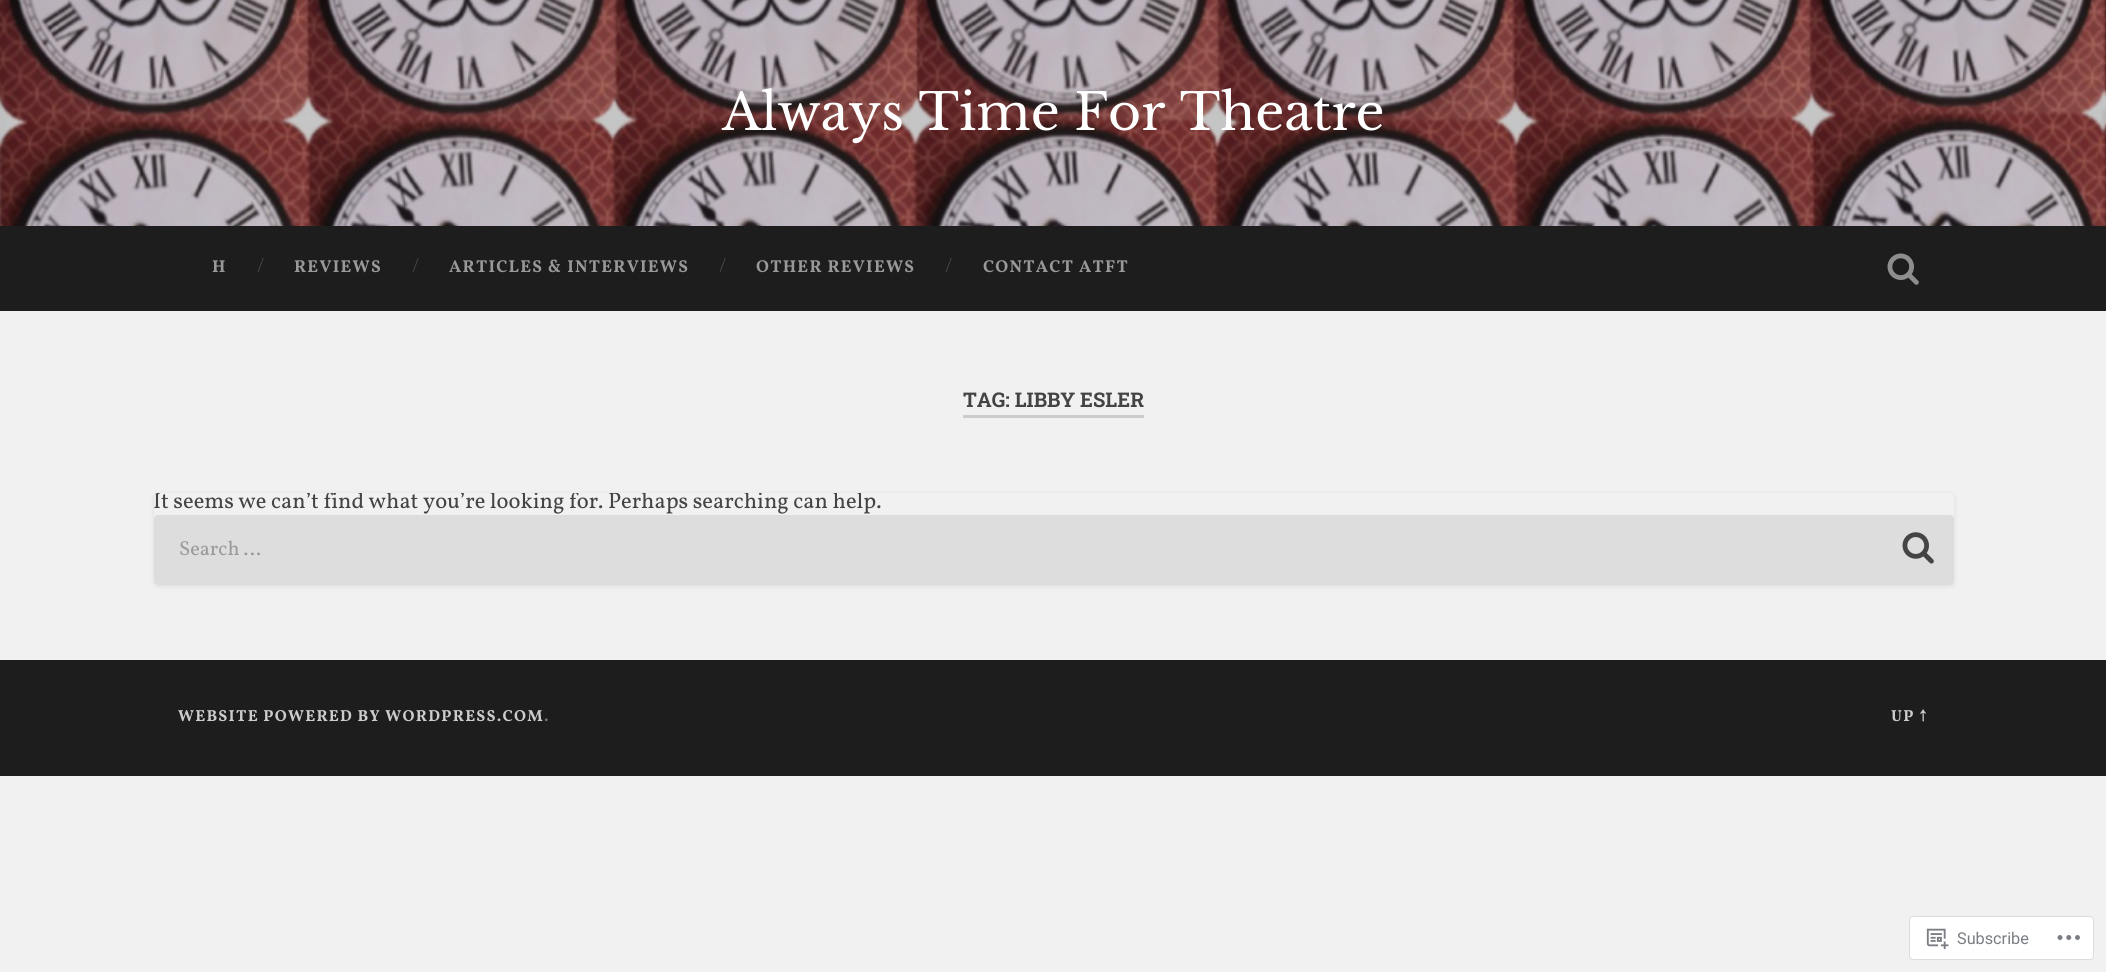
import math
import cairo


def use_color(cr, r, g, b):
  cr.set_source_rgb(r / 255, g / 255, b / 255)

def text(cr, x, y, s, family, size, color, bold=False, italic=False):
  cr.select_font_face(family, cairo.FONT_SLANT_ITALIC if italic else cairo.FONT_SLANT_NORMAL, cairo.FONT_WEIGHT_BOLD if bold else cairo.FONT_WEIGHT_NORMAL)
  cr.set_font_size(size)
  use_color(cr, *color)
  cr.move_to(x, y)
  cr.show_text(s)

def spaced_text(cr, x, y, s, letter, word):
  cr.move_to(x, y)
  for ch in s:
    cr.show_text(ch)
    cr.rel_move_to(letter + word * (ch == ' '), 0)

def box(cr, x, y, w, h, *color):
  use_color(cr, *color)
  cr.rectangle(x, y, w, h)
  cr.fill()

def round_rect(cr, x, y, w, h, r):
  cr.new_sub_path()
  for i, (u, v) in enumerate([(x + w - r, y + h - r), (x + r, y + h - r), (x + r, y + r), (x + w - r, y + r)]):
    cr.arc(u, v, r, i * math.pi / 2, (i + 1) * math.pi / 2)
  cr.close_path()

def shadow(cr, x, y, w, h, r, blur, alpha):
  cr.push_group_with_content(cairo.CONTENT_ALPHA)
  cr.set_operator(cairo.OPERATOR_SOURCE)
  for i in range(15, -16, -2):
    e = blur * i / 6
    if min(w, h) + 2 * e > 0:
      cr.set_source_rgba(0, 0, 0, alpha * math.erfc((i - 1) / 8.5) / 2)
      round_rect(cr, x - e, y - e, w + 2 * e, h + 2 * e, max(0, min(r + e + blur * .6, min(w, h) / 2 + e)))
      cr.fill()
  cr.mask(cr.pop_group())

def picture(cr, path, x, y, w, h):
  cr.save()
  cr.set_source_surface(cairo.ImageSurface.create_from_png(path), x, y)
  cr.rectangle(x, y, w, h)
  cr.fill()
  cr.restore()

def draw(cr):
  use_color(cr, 241, 241, 241)
  cr.paint()
  picture(cr, "img_01.png", 0, 0, 2106, 226)
  box(cr, 0, 226, 2106, 85, 29, 29, 29)
  picture(cr, "img_02.png", 1887, 253, 32, 32)
  box(cr, 963, 415, 181, 3, 204, 204, 204)
  cr.save()
  cr.set_fill_rule(cairo.FILL_RULE_EVEN_ODD)
  cr.new_path()
  cr.move_to(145, 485)
  cr.line_to(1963, 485)
  cr.line_to(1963, 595)
  cr.line_to(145, 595)
  cr.close_path()
  cr.move_to(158, 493)
  cr.line_to(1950, 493)
  cr.curve_to(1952, 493, 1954, 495, 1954, 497)
  cr.line_to(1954, 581)
  cr.curve_to(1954, 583, 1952, 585, 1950, 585)
  cr.line_to(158, 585)
  cr.curve_to(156, 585, 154, 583, 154, 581)
  cr.line_to(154, 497)
  cr.curve_to(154, 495, 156, 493, 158, 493)
  cr.close_path()
  cr.clip()
  use_color(cr, 0, 0, 0)
  shadow(cr, 154, 494, 1800, 92, 4, 2.5, 0.1)
  cr.restore()
  use_color(cr, 221, 221, 221)
  round_rect(cr, 154, 515, 1800, 70, 4)
  cr.fill()
  picture(cr, "img_03.png", 1902, 532, 32, 32)
  box(cr, 0, 660, 2106, 116, 29, 29, 29)
  use_color(cr, 255, 255, 255)
  round_rect(cr, 1909.5, 916.5, 184, 43, 3.5)
  cr.fill_preserve()
  use_color(cr, 220, 220, 222)
  cr.set_line_width(1)
  cr.stroke()
  picture(cr, "img_04.png", 1926, 928, 23, 22)
  picture(cr, "img_05.png", 2057, 935, 23, 5)
  text(cr, 722, 130, "Always Time For Theatre", "Libre Baskerville", 50.6, (255, 255, 255))
  cr.select_font_face("Vollkorn", cairo.FONT_SLANT_NORMAL, cairo.FONT_WEIGHT_BOLD)
  cr.set_font_size(17.25)
  use_color(cr, 153, 153, 153)
  spaced_text(cr, 212, 272, "H", 1.25, 0)
  text(cr, 257, 272, "/", "Vollkorn", 20, (68, 68, 68))
  cr.select_font_face("Vollkorn", cairo.FONT_SLANT_NORMAL, cairo.FONT_WEIGHT_BOLD)
  cr.set_font_size(17.25)
  use_color(cr, 153, 153, 153)
  spaced_text(cr, 294, 272, "REVIEWS", 1.25, 0)
  text(cr, 412, 272, "/", "Vollkorn", 20, (68, 68, 68))
  cr.select_font_face("Vollkorn", cairo.FONT_SLANT_NORMAL, cairo.FONT_WEIGHT_BOLD)
  cr.set_font_size(17.25)
  use_color(cr, 153, 153, 153)
  spaced_text(cr, 449, 272, "ARTICLES & INTERVIEWS", 1.25, 0)
  text(cr, 719, 272, "/", "Vollkorn", 20, (68, 68, 68))
  cr.select_font_face("Vollkorn", cairo.FONT_SLANT_NORMAL, cairo.FONT_WEIGHT_BOLD)
  cr.set_font_size(17.25)
  use_color(cr, 153, 153, 153)
  spaced_text(cr, 756, 272, "OTHER REVIEWS", 1.25, 0)
  text(cr, 945, 272, "/", "Vollkorn", 20, (68, 68, 68))
  cr.select_font_face("Vollkorn", cairo.FONT_SLANT_NORMAL, cairo.FONT_WEIGHT_BOLD)
  cr.set_font_size(17.25)
  use_color(cr, 153, 153, 153)
  spaced_text(cr, 983, 272, "CONTACT ATFT", 1.25, 0)
  text(cr, 963, 407, "TAG: LIBBY ESLER", "Roboto Slab", 20.25, (68, 68, 68), bold=True)
  cr.save()
  round_rect(cr, 154, 493, 1800, 92, 4)
  cr.clip()
  text(cr, 153, 508, "It seems we can’t find what you’re looking for. Perhaps searching can help.", "Vollkorn", 22.5, (68, 68, 68))
  cr.restore()
  text(cr, 179, 555, "Search …", "Vollkorn", 20.25, (153, 153, 153))
  cr.select_font_face("Vollkorn", cairo.FONT_SLANT_NORMAL, cairo.FONT_WEIGHT_BOLD)
  cr.set_font_size(16)
  use_color(cr, 204, 204, 204)
  spaced_text(cr, 178, 721, "WEBSITE POWERED BY WORDPRESS.COM", 1.25, 0)
  use_color(cr, 118, 118, 118)
  spaced_text(cr, 544, 721, ".", 1.25, 0)
  use_color(cr, 204, 204, 204)
  spaced_text(cr, 1891, 721, "UP ↑", 1.25, 0)
  text(cr, 1957, 944, "Subscribe", "Roboto", 16.25, (122, 126, 132))


surface = cairo.ImageSurface(cairo.FORMAT_RGB24, 2106, 972)
cr = cairo.Context(surface)
options = cairo.FontOptions()
options.set_hint_metrics(cairo.HINT_METRICS_OFF)
options.set_hint_style(cairo.HINT_STYLE_NONE)
cr.set_font_options(options)
cr.set_miter_limit(4)
draw(cr)
surface.write_to_png("out.png")
